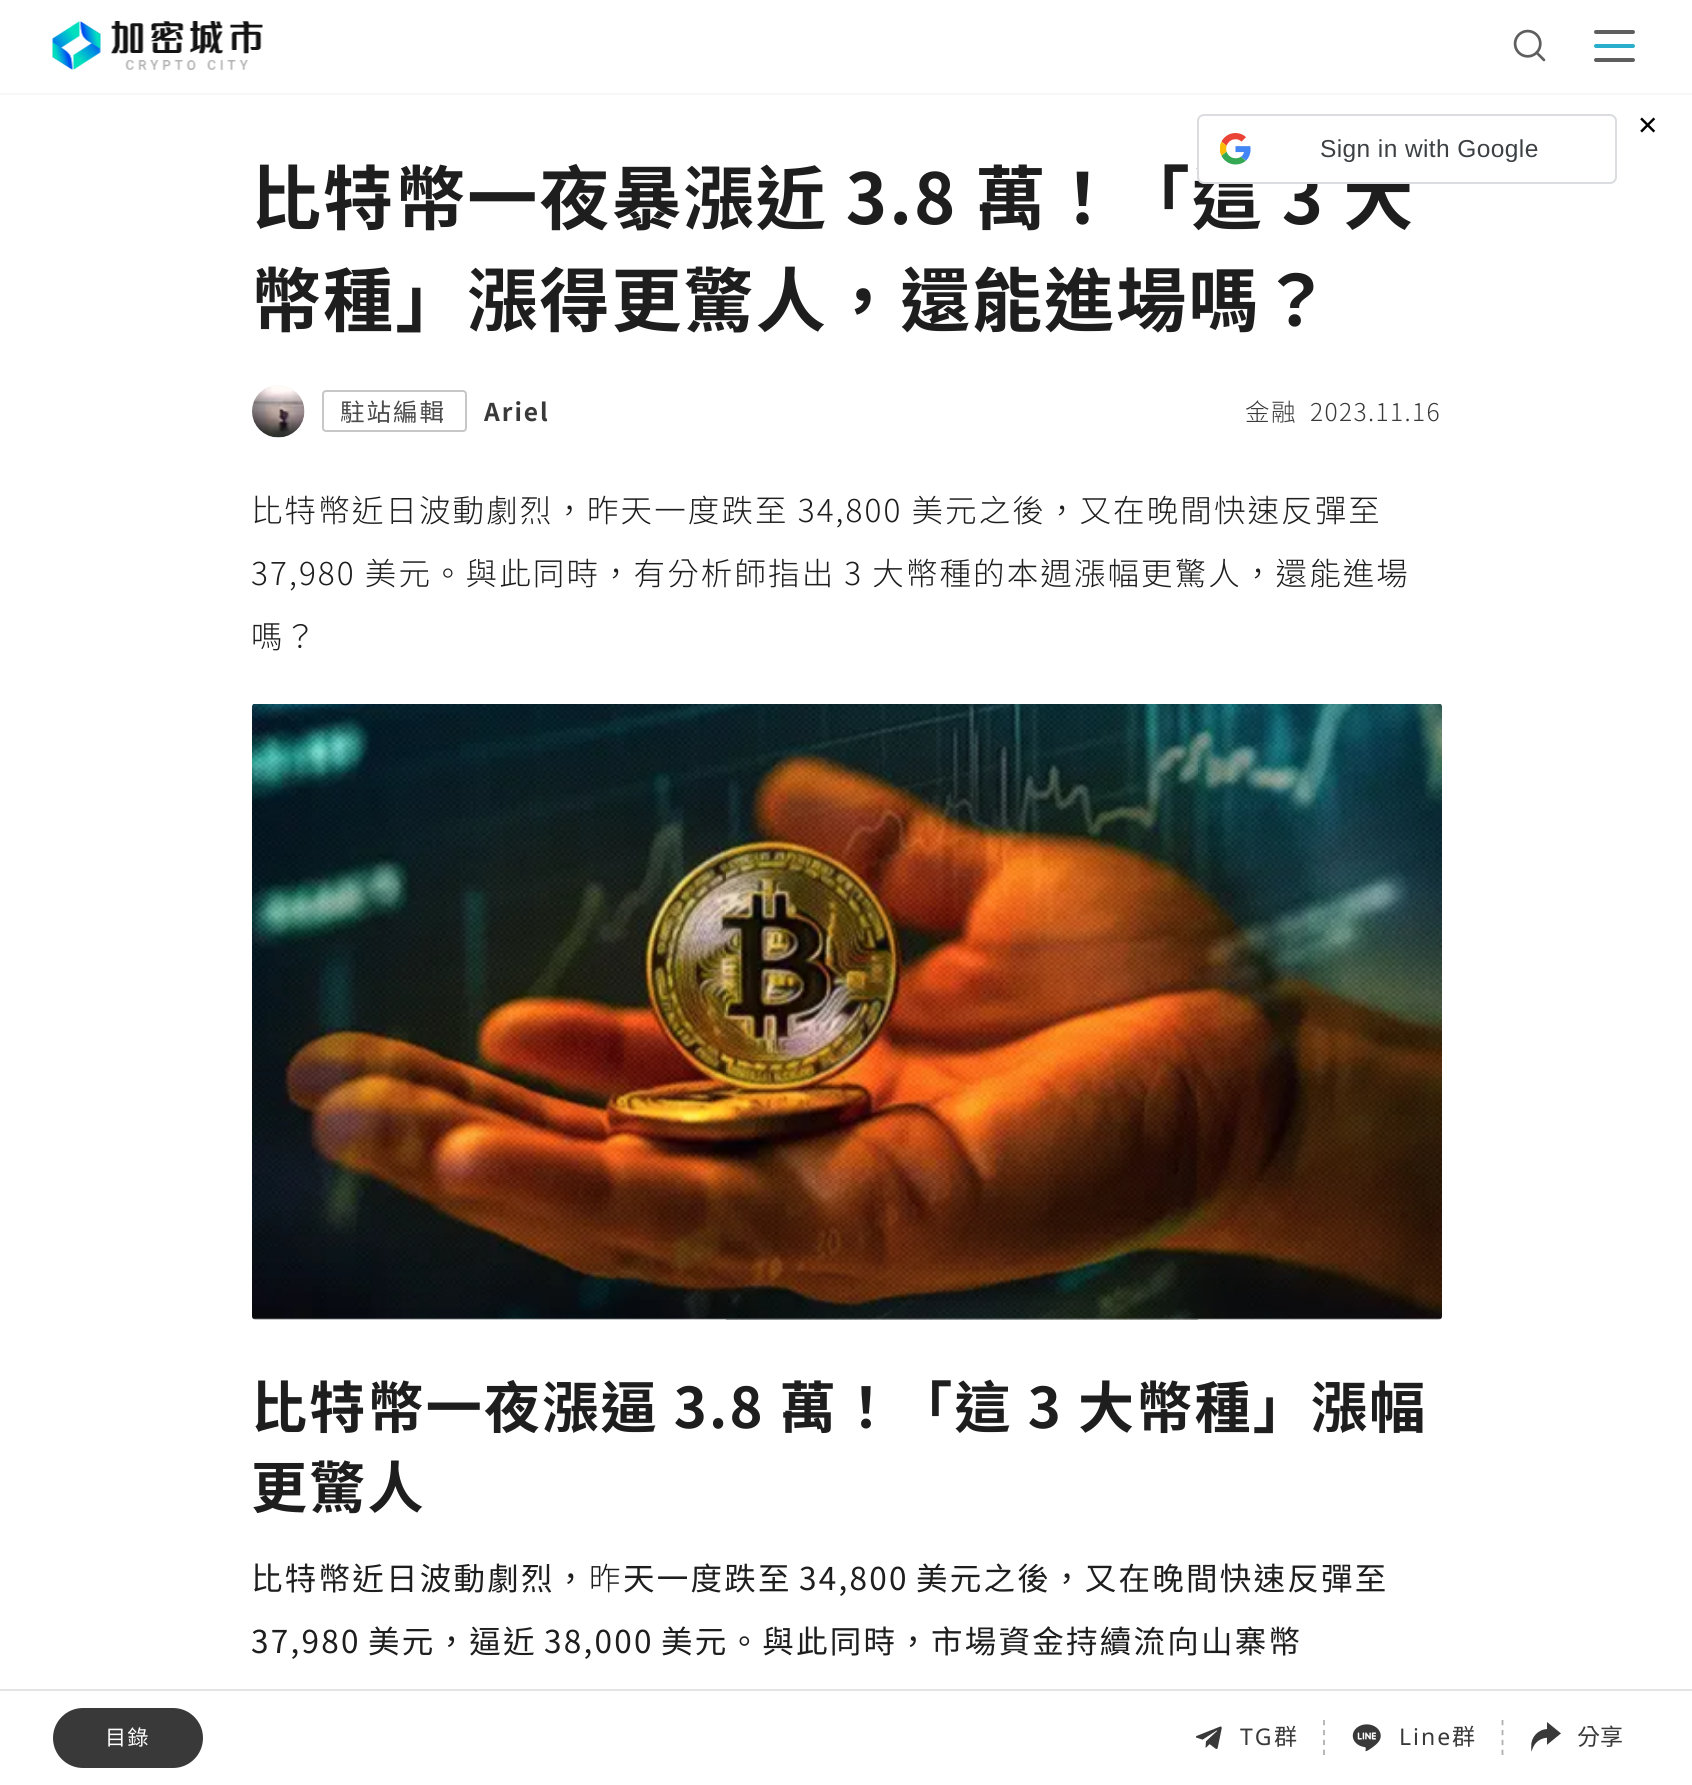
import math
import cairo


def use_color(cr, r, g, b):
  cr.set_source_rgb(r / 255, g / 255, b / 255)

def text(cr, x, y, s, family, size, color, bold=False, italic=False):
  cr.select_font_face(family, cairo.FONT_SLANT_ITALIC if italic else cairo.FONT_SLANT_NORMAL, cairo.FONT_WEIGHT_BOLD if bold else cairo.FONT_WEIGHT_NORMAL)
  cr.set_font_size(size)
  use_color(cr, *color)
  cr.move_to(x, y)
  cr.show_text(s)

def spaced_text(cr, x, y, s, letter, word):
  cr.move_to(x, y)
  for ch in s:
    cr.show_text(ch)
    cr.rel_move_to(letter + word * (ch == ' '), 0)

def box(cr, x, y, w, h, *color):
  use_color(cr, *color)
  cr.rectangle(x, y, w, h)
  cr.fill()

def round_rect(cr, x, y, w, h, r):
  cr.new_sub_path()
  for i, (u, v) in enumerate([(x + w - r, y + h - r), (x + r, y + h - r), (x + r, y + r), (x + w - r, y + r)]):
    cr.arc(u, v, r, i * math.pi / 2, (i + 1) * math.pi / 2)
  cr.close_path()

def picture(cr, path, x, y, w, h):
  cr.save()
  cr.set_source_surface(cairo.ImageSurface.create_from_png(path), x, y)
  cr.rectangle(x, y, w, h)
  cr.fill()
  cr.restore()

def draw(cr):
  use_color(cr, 255, 255, 255)
  cr.paint()
  box(cr, 0, 93, 1692, 2, 247, 247, 248)
  picture(cr, "img_01.png", 52, 21, 211, 49)
  picture(cr, "img_02.png", 1513, 29, 33, 33)
  use_color(cr, 94, 94, 94)
  round_rect(cr, 1594, 30, 41, 4, 2)
  cr.fill()
  use_color(cr, 41, 175, 203)
  round_rect(cr, 1594, 44, 41, 4, 2)
  cr.fill()
  use_color(cr, 94, 94, 94)
  round_rect(cr, 1594, 58, 41, 4, 2)
  cr.fill()
  picture(cr, "img_04.png", 252, 385, 53, 53)
  round_rect(cr, 323, 391, 143, 40, 3)
  use_color(cr, 199, 199, 199)
  cr.stroke()
  picture(cr, "img_05.png", 252, 704, 1190, 616)
  box(cr, 0, 1689, 1692, 2, 228, 228, 228)
  use_color(cr, 57, 57, 57)
  round_rect(cr, 53, 1708, 150, 60, 30)
  cr.fill()
  picture(cr, "img_06.png", 1196, 1726, 26, 23)
  cr.new_path()
  cr.move_to(1324, 1720)
  cr.line_to(1324, 1755)
  use_color(cr, 176, 176, 176)
  cr.set_line_width(1.8)
  cr.set_dash([5.25, 4.67])
  cr.stroke()
  picture(cr, "img_07.png", 1352, 1724, 29, 28)
  cr.new_path()
  cr.move_to(1502.5, 1720)
  cr.line_to(1502.5, 1755)
  cr.stroke()
  picture(cr, "img_08.png", 1531, 1722, 30, 30)
  text(cr, 1638, 137, "×", "Noto Sans", 34, (0, 0, 0))
  cr.select_font_face("Noto Sans TC", cairo.FONT_SLANT_NORMAL, cairo.FONT_WEIGHT_BOLD)
  cr.set_font_size(70)
  use_color(cr, 30, 30, 30)
  spaced_text(cr, 251, 224, "比特幣一夜暴漲近 3.8 萬！「這 3 大", 2.1, 0)
  use_color(cr, 255, 255, 255)
  round_rect(cr, 1198, 115, 418, 68, 6)
  cr.fill_preserve()
  use_color(cr, 218, 220, 224)
  cr.set_line_width(2)
  cr.set_dash([])
  cr.stroke()
  cr.select_font_face("Liberation Sans")
  cr.set_font_size(24.5)
  use_color(cr, 60, 64, 67)
  spaced_text(cr, 1320, 157, "Sign in with Google", 0.4, 0)
  picture(cr, "img_03.png", 1220, 133, 31, 32)
  cr.select_font_face("Noto Sans TC", cairo.FONT_SLANT_NORMAL, cairo.FONT_WEIGHT_BOLD)
  cr.set_font_size(70)
  use_color(cr, 30, 30, 30)
  spaced_text(cr, 251, 326, "幣種」漲得更驚人，還能進場嗎？", 2.1, 0)
  cr.select_font_face("Noto Sans TC")
  cr.set_font_size(24.5)
  use_color(cr, 75, 75, 75)
  spaced_text(cr, 340, 421, "駐站編輯", 2, 0)
  cr.select_font_face("Noto Sans TC", cairo.FONT_SLANT_NORMAL, cairo.FONT_WEIGHT_BOLD)
  use_color(cr, 57, 57, 57)
  spaced_text(cr, 484, 421, "Ariel", 2, 0)
  cr.select_font_face("Noto Sans TC Light")
  spaced_text(cr, 1245, 421, "金融", 1.4, 0)
  spaced_text(cr, 1310, 421, "2023.11.16", 1.4, 0)
  cr.set_font_size(31.5)
  use_color(cr, 30, 30, 30)
  spaced_text(cr, 251, 522, "比特幣近日波動劇烈，昨天一度跌至 34,800 美元之後，又在晚間快速反彈至", 2.1, 0)
  spaced_text(cr, 251, 585, "37,980 美元。與此同時，有分析師指出 3 大幣種的本週漲幅更驚人，還能進場", 2.1, 0)
  spaced_text(cr, 251, 648, "嗎？", 2.1, 0)
  cr.select_font_face("Noto Sans TC", cairo.FONT_SLANT_NORMAL, cairo.FONT_WEIGHT_BOLD)
  cr.set_font_size(56)
  spaced_text(cr, 251, 1428, "比特幣一夜漲逼 3.8 萬！「這 3 大幣種」漲幅", 2.25, 0)
  spaced_text(cr, 251, 1508, "更驚人", 2.25, 0)
  cr.select_font_face("Noto Sans CJK TC")
  cr.set_font_size(31.5)
  spaced_text(cr, 251, 1590, "比特幣近日波動劇烈，", 2.25, 0)
  cr.select_font_face("Noto Sans TC Light")
  spaced_text(cr, 589, 1590, "昨", 2.25, 0)
  cr.select_font_face("Noto Sans CJK TC")
  spaced_text(cr, 623, 1590, "天一度跌至 34,800 美元之後，又在晚間快速反彈至", 2.25, -2)
  spaced_text(cr, 251, 1653, "37,980 美元，逼近 38,000 美元。與此同時，市場資金持續流向山寨幣", 2.25, -2)
  cr.set_font_size(21)
  use_color(cr, 255, 255, 255)
  spaced_text(cr, 105, 1745, "目錄", 1.4, 0)
  cr.select_font_face("Noto Sans")
  cr.set_font_size(23)
  use_color(cr, 57, 57, 57)
  spaced_text(cr, 1240, 1745, "TG", 2, 0)
  cr.select_font_face("Noto Sans CJK TC")
  spaced_text(cr, 1274, 1745, "群", 2, 0)
  cr.select_font_face("Noto Sans")
  spaced_text(cr, 1399, 1745, "Line", 2, 0)
  cr.select_font_face("Noto Sans CJK TC")
  spaced_text(cr, 1452, 1745, "群", 2, 0)
  text(cr, 1577, 1745, "分享", "Noto Sans CJK TC", 23, (57, 57, 57))


surface = cairo.ImageSurface(cairo.FORMAT_RGB24, 1692, 1785)
cr = cairo.Context(surface)
options = cairo.FontOptions()
options.set_hint_metrics(cairo.HINT_METRICS_OFF)
options.set_hint_style(cairo.HINT_STYLE_NONE)
cr.set_font_options(options)
cr.set_miter_limit(4)
draw(cr)
surface.write_to_png("out.png")
